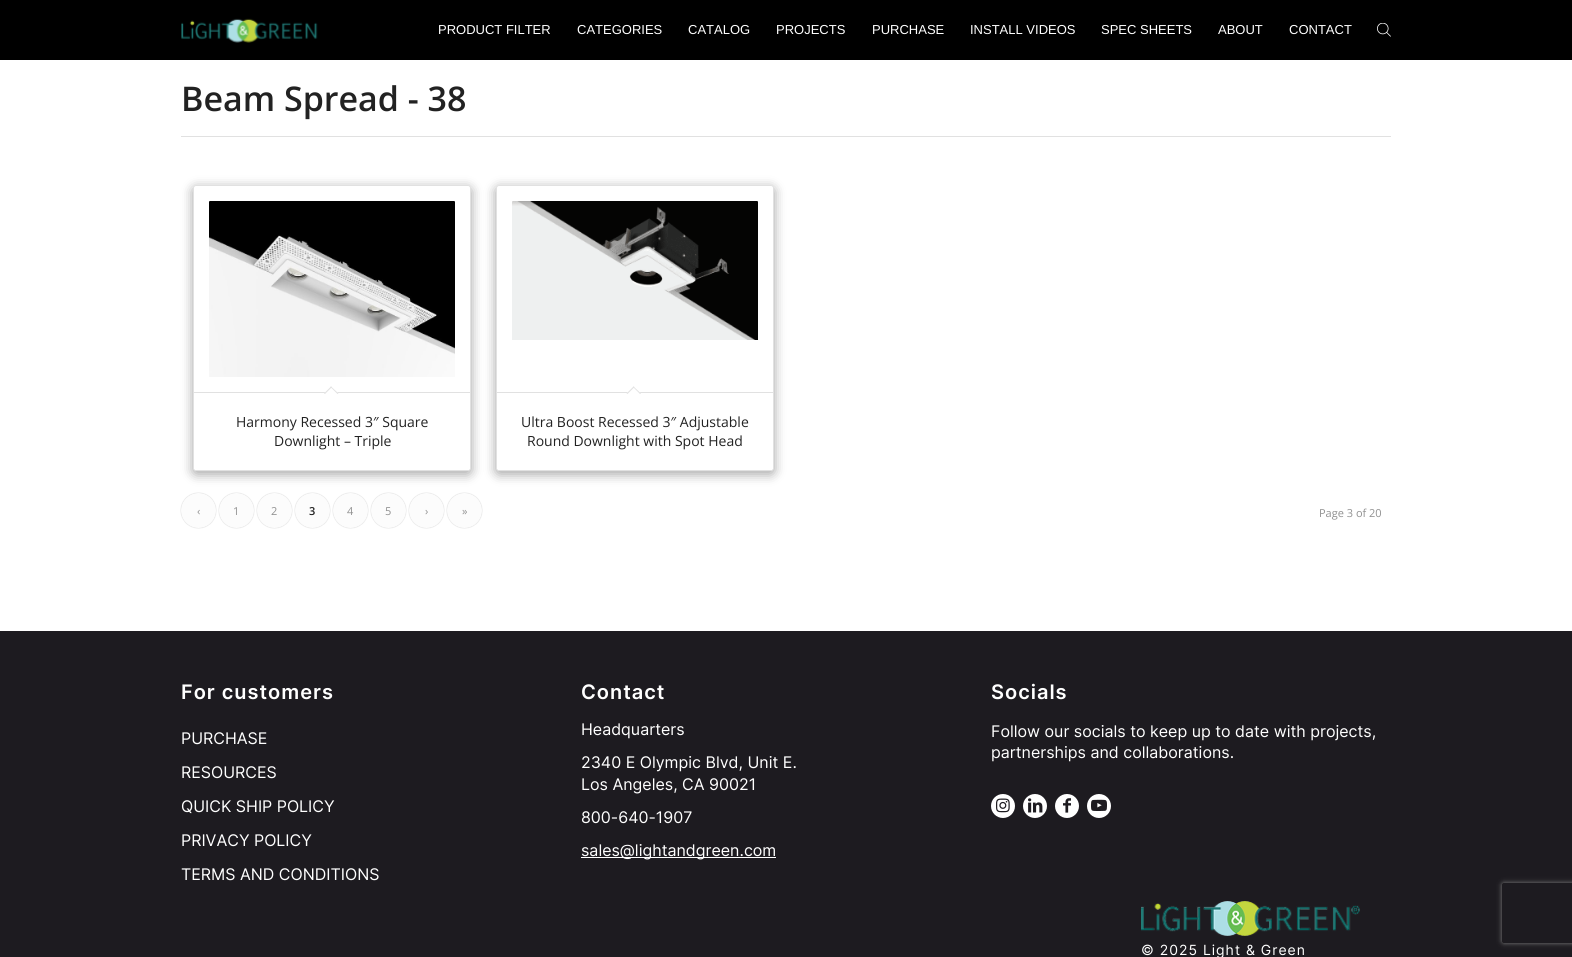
import math
import cairo


def use_color(cr, r, g, b):
  cr.set_source_rgb(r / 255, g / 255, b / 255)

def text(cr, x, y, s, family, size, color, bold=False, italic=False):
  cr.select_font_face(family, cairo.FONT_SLANT_ITALIC if italic else cairo.FONT_SLANT_NORMAL, cairo.FONT_WEIGHT_BOLD if bold else cairo.FONT_WEIGHT_NORMAL)
  cr.set_font_size(size)
  use_color(cr, *color)
  cr.move_to(x, y)
  cr.show_text(s)

def spaced_text(cr, x, y, s, letter, word):
  cr.move_to(x, y)
  for ch in s:
    cr.show_text(ch)
    cr.rel_move_to(letter + word * (ch == ' '), 0)

def box(cr, x, y, w, h, *color):
  use_color(cr, *color)
  cr.rectangle(x, y, w, h)
  cr.fill()

def round_rect(cr, x, y, w, h, r):
  cr.new_sub_path()
  for i, (u, v) in enumerate([(x + w - r, y + h - r), (x + r, y + h - r), (x + r, y + r), (x + w - r, y + r)]):
    cr.arc(u, v, r, i * math.pi / 2, (i + 1) * math.pi / 2)
  cr.close_path()

def shadow(cr, x, y, w, h, r, blur, alpha):
  cr.push_group_with_content(cairo.CONTENT_ALPHA)
  cr.set_operator(cairo.OPERATOR_SOURCE)
  for i in range(15, -16, -2):
    e = blur * i / 6
    if min(w, h) + 2 * e > 0:
      cr.set_source_rgba(0, 0, 0, alpha * math.erfc((i - 1) / 8.5) / 2)
      round_rect(cr, x - e, y - e, w + 2 * e, h + 2 * e, max(0, min(r + e + blur * .6, min(w, h) / 2 + e)))
      cr.fill()
  cr.mask(cr.pop_group())

def picture(cr, path, x, y, w, h):
  cr.save()
  cr.set_source_surface(cairo.ImageSurface.create_from_png(path), x, y)
  cr.rectangle(x, y, w, h)
  cr.fill()
  cr.restore()

def draw(cr):
  use_color(cr, 255, 255, 255)
  cr.paint()
  box(cr, 0, 0, 1572, 60, 0, 0, 0)
  picture(cr, "img_01.png", 181, 18, 137, 25)
  picture(cr, "img_02.png", 1377, 23, 14, 14)
  box(cr, 181, 136, 1210, 1, 225, 225, 225)
  use_color(cr, 0, 0, 0)
  shadow(cr, 193, 188, 278, 286, 3, 6, 0.16)
  shadow(cr, 193, 188, 278, 286, 3, 6, 0.23)
  use_color(cr, 255, 255, 255)
  round_rect(cr, 193.5, 185.5, 277, 285, 2.5)
  cr.fill_preserve()
  use_color(cr, 225, 225, 225)
  cr.set_line_width(1)
  cr.stroke()
  picture(cr, "img_03.png", 209, 201, 246, 176)
  use_color(cr, 255, 255, 255)
  cr.new_path()
  cr.move_to(194, 392)
  cr.line_to(470, 392)
  cr.line_to(470, 468)
  cr.curve_to(470, 469, 469, 470, 468, 470)
  cr.line_to(196, 470)
  cr.curve_to(195, 470, 194, 469, 194, 468)
  cr.close_path()
  cr.fill()
  box(cr, 194, 392, 276, 1, 225, 225, 225)
  use_color(cr, 255, 255, 255)
  cr.new_path()
  cr.move_to(331, 386.5)
  cr.line_to(338.5, 393.5)
  cr.line_to(331, 400.5)
  cr.line_to(324, 393.5)
  cr.close_path()
  cr.fill()
  use_color(cr, 225, 225, 225)
  cr.new_path()
  cr.move_to(331, 386.5)
  cr.line_to(338.5, 393.5)
  cr.line_to(337.5, 394)
  cr.line_to(330.5, 387)
  cr.close_path()
  cr.fill()
  cr.new_path()
  cr.move_to(331, 386.5)
  cr.line_to(332, 387)
  cr.line_to(325, 394)
  cr.line_to(324, 393.5)
  cr.close_path()
  cr.fill()
  use_color(cr, 0, 0, 0)
  shadow(cr, 496, 188, 278, 286, 3, 6, 0.16)
  shadow(cr, 496, 188, 278, 286, 3, 6, 0.23)
  use_color(cr, 255, 255, 255)
  round_rect(cr, 496.5, 185.5, 277, 285, 2.5)
  cr.fill_preserve()
  use_color(cr, 225, 225, 225)
  cr.stroke()
  picture(cr, "img_04.png", 512, 201, 246, 139)
  use_color(cr, 255, 255, 255)
  cr.new_path()
  cr.move_to(497, 392)
  cr.line_to(773, 392)
  cr.line_to(773, 468)
  cr.curve_to(773, 469, 772, 470, 771, 470)
  cr.line_to(499, 470)
  cr.curve_to(498, 470, 497, 469, 497, 468)
  cr.close_path()
  cr.fill()
  box(cr, 497, 392, 276, 1, 225, 225, 225)
  use_color(cr, 255, 255, 255)
  cr.new_path()
  cr.move_to(633.5, 386.5)
  cr.line_to(641, 393.5)
  cr.line_to(633.5, 400.5)
  cr.line_to(626.5, 393.5)
  cr.close_path()
  cr.fill()
  use_color(cr, 225, 225, 225)
  cr.new_path()
  cr.move_to(633.5, 386.5)
  cr.line_to(641, 393.5)
  cr.line_to(640, 394)
  cr.line_to(633, 387)
  cr.close_path()
  cr.fill()
  cr.new_path()
  cr.move_to(633.5, 386.5)
  cr.line_to(634.5, 387)
  cr.line_to(627.5, 394)
  cr.line_to(626.5, 393.5)
  cr.close_path()
  cr.fill()
  use_color(cr, 0, 0, 0)
  shadow(cr, 181, 493, 35, 35, 17.5, 0.5, 0.2)
  use_color(cr, 252, 252, 252)
  cr.arc(198.5, 510.5, 17.5, 0, 2 * math.pi)
  cr.fill()
  use_color(cr, 0, 0, 0)
  shadow(cr, 219, 493, 35, 35, 17.5, 0.5, 0.2)
  use_color(cr, 252, 252, 252)
  cr.arc(236.5, 510.5, 17.5, 0, 2 * math.pi)
  cr.fill()
  use_color(cr, 0, 0, 0)
  shadow(cr, 257, 493, 35, 35, 17.5, 0.5, 0.2)
  use_color(cr, 252, 252, 252)
  cr.arc(274.5, 510.5, 17.5, 0, 2 * math.pi)
  cr.fill()
  use_color(cr, 0, 0, 0)
  shadow(cr, 295, 493, 35, 35, 17.5, 0.5, 0.2)
  use_color(cr, 252, 252, 252)
  cr.arc(312.5, 510.5, 17.5, 0, 2 * math.pi)
  cr.fill()
  use_color(cr, 0, 0, 0)
  shadow(cr, 333, 493, 35, 35, 17.5, 0.5, 0.2)
  use_color(cr, 252, 252, 252)
  cr.arc(350.5, 510.5, 17.5, 0, 2 * math.pi)
  cr.fill()
  use_color(cr, 0, 0, 0)
  shadow(cr, 371, 493, 35, 35, 17.5, 0.5, 0.2)
  use_color(cr, 252, 252, 252)
  cr.arc(388.5, 510.5, 17.5, 0, 2 * math.pi)
  cr.fill()
  use_color(cr, 0, 0, 0)
  shadow(cr, 409, 493, 35, 35, 17.5, 0.5, 0.2)
  use_color(cr, 252, 252, 252)
  cr.arc(426.5, 510.5, 17.5, 0, 2 * math.pi)
  cr.fill()
  use_color(cr, 0, 0, 0)
  shadow(cr, 447, 493, 35, 35, 17.5, 0.5, 0.2)
  use_color(cr, 252, 252, 252)
  cr.arc(464.5, 510.5, 17.5, 0, 2 * math.pi)
  cr.fill()
  box(cr, 0, 631, 1572, 326, 29, 27, 32)
  box(cr, 581, 857, 195, 1, 255, 255, 255)
  cr.arc(1003, 806, 12, 0, 2 * math.pi)
  cr.fill()
  picture(cr, "img_05.png", 996, 798, 14, 15)
  cr.arc(1035, 806, 12, 0, 2 * math.pi)
  cr.fill()
  picture(cr, "img_06.png", 1028, 798, 15, 15)
  cr.arc(1067, 806, 12, 0, 2 * math.pi)
  cr.fill()
  picture(cr, "img_07.png", 1063, 798, 8, 15)
  cr.arc(1099, 806, 12, 0, 2 * math.pi)
  cr.fill()
  picture(cr, "img_08.png", 1091, 799, 16, 12)
  picture(cr, "img_09.png", 1141, 901, 219, 35)
  cr.save()
  cr.set_fill_rule(cairo.FILL_RULE_EVEN_ODD)
  cr.new_path()
  cr.move_to(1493, 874)
  cr.line_to(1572, 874)
  cr.line_to(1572, 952)
  cr.line_to(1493, 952)
  cr.close_path()
  cr.move_to(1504, 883)
  cr.line_to(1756, 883)
  cr.curve_to(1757, 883, 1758, 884, 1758, 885)
  cr.line_to(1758, 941)
  cr.curve_to(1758, 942, 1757, 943, 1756, 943)
  cr.line_to(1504, 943)
  cr.curve_to(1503, 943, 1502, 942, 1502, 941)
  cr.line_to(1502, 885)
  cr.curve_to(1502, 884, 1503, 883, 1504, 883)
  cr.close_path()
  cr.clip()
  use_color(cr, 128, 128, 128)
  shadow(cr, 1502, 883, 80, 60, 2, 2.5, 1)
  cr.restore()
  text(cr, 438, 34, "PRODUCT FILTER", "Liberation Sans", 13, (255, 255, 255))
  text(cr, 577, 34, "CATEGORIES", "Liberation Sans", 13, (255, 255, 255))
  text(cr, 688, 34, "CATALOG", "Liberation Sans", 13, (255, 255, 255))
  text(cr, 776, 34, "PROJECTS", "Liberation Sans", 13, (255, 255, 255))
  text(cr, 872, 34, "PURCHASE", "Liberation Sans", 13, (255, 255, 255))
  text(cr, 970, 34, "INSTALL VIDEOS", "Liberation Sans", 13, (255, 255, 255))
  text(cr, 1101, 34, "SPEC SHEETS", "Liberation Sans", 13, (255, 255, 255))
  text(cr, 1218, 34, "ABOUT", "Liberation Sans", 13, (255, 255, 255))
  text(cr, 1289, 34, "CONTACT", "Liberation Sans", 13, (255, 255, 255))
  text(cr, 181, 111, "Beam Spread - 38", "Open Sans SemiBold", 34, (34, 34, 34))
  text(cr, 236, 427, "Harmony Recessed 3″ Square", "Open Sans", 14, (34, 34, 34))
  text(cr, 274, 446, "Downlight – Triple", "Open Sans", 14, (34, 34, 34))
  text(cr, 521, 427, "Ultra Boost Recessed 3″ Adjustable", "Open Sans", 14, (34, 34, 34))
  text(cr, 527, 446, "Round Downlight with Spot Head", "Open Sans", 14, (34, 34, 34))
  text(cr, 197, 515, "‹", "Open Sans", 11, (145, 145, 145))
  text(cr, 233, 515, "1", "Open Sans", 11, (145, 145, 145))
  text(cr, 271, 515, "2", "Open Sans", 11, (145, 145, 145))
  text(cr, 309, 515, "3", "Open Sans SemiBold", 11, (34, 34, 34))
  text(cr, 347, 515, "4", "Open Sans", 11, (145, 145, 145))
  text(cr, 385, 515, "5", "Open Sans", 11, (145, 145, 145))
  text(cr, 425, 515, "›", "Open Sans", 11, (145, 145, 145))
  text(cr, 462, 515, "»", "Open Sans", 11, (145, 145, 145))
  text(cr, 1319, 517, "Page 3 of 20", "Open Sans", 11, (145, 145, 145))
  cr.select_font_face("Inter SemiBold")
  cr.set_font_size(20)
  use_color(cr, 255, 255, 255)
  spaced_text(cr, 181, 699, "For customers", 1, 0)
  text(cr, 181, 744, "PURCHASE", "Inter", 16, (255, 255, 255))
  text(cr, 181, 778, "RESOURCES", "Inter", 16, (255, 255, 255))
  text(cr, 181, 812, "QUICK SHIP POLICY", "Inter", 16, (255, 255, 255))
  text(cr, 181, 846, "PRIVACY POLICY", "Inter", 16, (255, 255, 255))
  text(cr, 181, 880, "TERMS AND CONDITIONS", "Inter", 16, (255, 255, 255))
  cr.select_font_face("Inter SemiBold")
  cr.set_font_size(20)
  spaced_text(cr, 581, 699, "Contact", 1, 0)
  text(cr, 581, 735, "Headquarters", "Inter", 16, (255, 255, 255))
  text(cr, 581, 768, "2340 E Olympic Blvd, Unit E.", "Inter", 16, (255, 255, 255))
  text(cr, 581, 790, "Los Angeles, CA 90021", "Inter", 16, (255, 255, 255))
  text(cr, 581, 823, "800-640-1907", "Inter", 16, (255, 255, 255))
  text(cr, 581, 856, "sales@lightandgreen.com", "Inter", 16, (255, 255, 255))
  cr.select_font_face("Inter SemiBold")
  cr.set_font_size(20)
  spaced_text(cr, 991, 699, "Socials", 1, 0)
  text(cr, 991, 737, "Follow our socials to keep up to date with projects,", "Inter", 16, (255, 255, 255))
  text(cr, 991, 758, "partnerships and collaborations.", "Inter", 16, (255, 255, 255))
  cr.set_font_size(14)
  spaced_text(cr, 1141, 955, "© 2025 Light & Green", 1, 0)


surface = cairo.ImageSurface(cairo.FORMAT_RGB24, 1572, 957)
cr = cairo.Context(surface)
options = cairo.FontOptions()
options.set_hint_metrics(cairo.HINT_METRICS_OFF)
options.set_hint_style(cairo.HINT_STYLE_NONE)
cr.set_font_options(options)
cr.set_miter_limit(4)
draw(cr)
surface.write_to_png("out.png")
